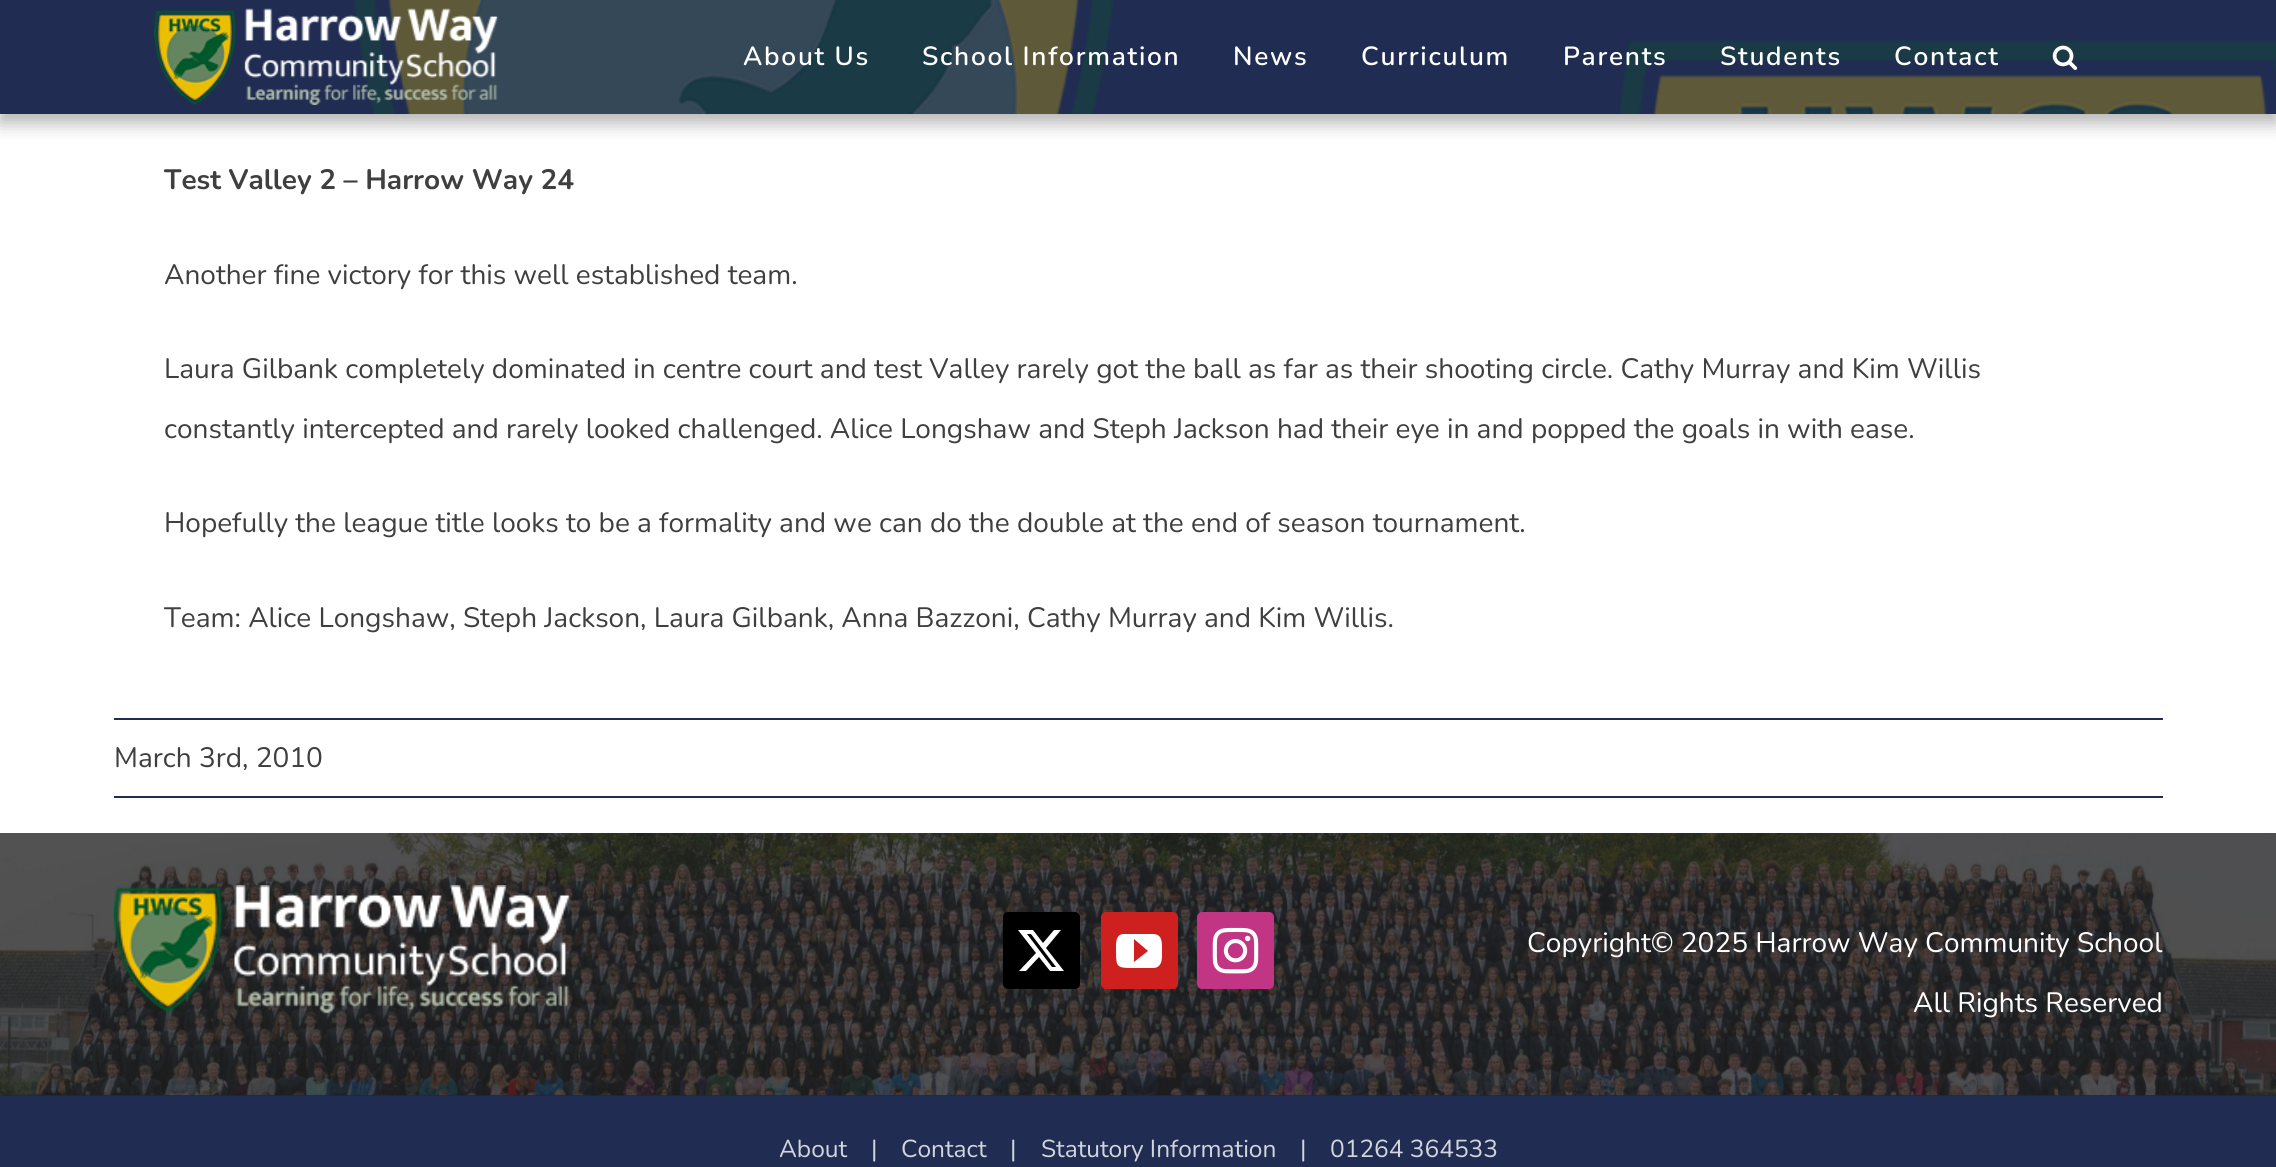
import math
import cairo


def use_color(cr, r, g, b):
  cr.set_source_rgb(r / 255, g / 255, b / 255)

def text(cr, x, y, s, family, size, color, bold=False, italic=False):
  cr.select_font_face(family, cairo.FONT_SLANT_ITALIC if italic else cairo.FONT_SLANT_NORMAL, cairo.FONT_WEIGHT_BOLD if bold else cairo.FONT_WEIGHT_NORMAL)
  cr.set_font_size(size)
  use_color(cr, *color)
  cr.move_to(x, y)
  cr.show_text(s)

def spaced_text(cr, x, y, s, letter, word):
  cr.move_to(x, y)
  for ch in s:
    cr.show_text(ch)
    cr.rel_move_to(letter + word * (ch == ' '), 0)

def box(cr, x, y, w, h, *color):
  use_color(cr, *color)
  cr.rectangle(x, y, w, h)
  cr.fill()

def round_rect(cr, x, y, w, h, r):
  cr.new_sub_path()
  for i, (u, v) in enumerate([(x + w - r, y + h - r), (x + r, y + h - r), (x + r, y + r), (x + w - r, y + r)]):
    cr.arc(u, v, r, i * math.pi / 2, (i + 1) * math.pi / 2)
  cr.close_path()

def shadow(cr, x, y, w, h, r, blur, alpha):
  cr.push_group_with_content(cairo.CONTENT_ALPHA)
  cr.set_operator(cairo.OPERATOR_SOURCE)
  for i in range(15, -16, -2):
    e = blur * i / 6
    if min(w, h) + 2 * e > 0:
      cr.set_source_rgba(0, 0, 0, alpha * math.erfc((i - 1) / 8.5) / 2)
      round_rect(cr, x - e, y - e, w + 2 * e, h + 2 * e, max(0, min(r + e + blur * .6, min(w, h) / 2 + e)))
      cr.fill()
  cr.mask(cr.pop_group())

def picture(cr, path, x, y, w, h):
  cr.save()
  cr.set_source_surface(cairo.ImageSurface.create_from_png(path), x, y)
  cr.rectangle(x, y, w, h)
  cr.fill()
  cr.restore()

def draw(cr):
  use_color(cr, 255, 255, 255)
  cr.paint()
  use_color(cr, 0, 0, 0)
  shadow(cr, 0, 9, 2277, 114, 0, 9, 0.3)
  box(cr, 0, 0, 2276, 114, 32, 44, 82)
  picture(cr, "img_01.png", 353, 0, 1923, 114)
  picture(cr, "img_02.png", 154, 8, 345, 97)
  picture(cr, "img_03.png", 2052, 45, 26, 25)
  box(cr, 114, 718, 2049, 2, 32, 44, 82)
  box(cr, 114, 796, 2049, 2, 32, 44, 82)
  box(cr, 0, 1094, 2276, 2, 33, 41, 52)
  picture(cr, "img_04.png", 0, 833, 2276, 263)
  picture(cr, "img_05.png", 113, 885, 457, 129)
  use_color(cr, 0, 0, 0)
  round_rect(cr, 1004, 913, 75, 75, 4)
  cr.fill_preserve()
  cr.stroke()
  use_color(cr, 255, 255, 255)
  cr.new_path()
  cr.move_to(1054, 930)
  cr.line_to(1061, 930)
  cr.line_to(1046, 948)
  cr.line_to(1064, 971)
  cr.line_to(1050, 971)
  cr.line_to(1039, 957)
  cr.line_to(1026, 971)
  cr.line_to(1019, 971)
  cr.line_to(1036, 953)
  cr.line_to(1018, 930)
  cr.line_to(1033, 930)
  cr.line_to(1043, 943)
  cr.close_path()
  cr.move_to(1052, 967)
  cr.line_to(1056, 967)
  cr.line_to(1031, 934)
  cr.line_to(1027, 934)
  cr.close_path()
  cr.fill()
  use_color(cr, 205, 32, 31)
  round_rect(cr, 1102, 913, 75, 75, 4)
  cr.fill_preserve()
  cr.stroke()
  use_color(cr, 255, 255, 255)
  cr.new_path()
  cr.move_to(1153, 934)
  cr.line_to(1124, 934)
  cr.curve_to(1115, 934, 1116, 944, 1116, 951)
  cr.curve_to(1116, 968, 1117, 968, 1135, 968)
  cr.line_to(1154, 968)
  cr.curve_to(1163, 967, 1162, 957, 1162, 951)
  cr.curve_to(1162, 944, 1163, 934, 1153, 934)
  cr.close_path()
  cr.move_to(1134, 962)
  cr.line_to(1134, 939)
  cr.line_to(1148, 951)
  cr.close_path()
  cr.fill()
  use_color(cr, 193, 53, 132)
  round_rect(cr, 1198, 913, 75, 75, 4)
  cr.fill_preserve()
  cr.stroke()
  picture(cr, "img_06.png", 1212, 927, 47, 47)
  box(cr, 0, 1096, 2276, 71, 32, 44, 82)
  cr.select_font_face("Nunito SemiBold")
  cr.set_font_size(26.25)
  use_color(cr, 255, 255, 255)
  spaced_text(cr, 743, 65, "About Us", 1.75, 0)
  spaced_text(cr, 922, 65, "School Information", 1.75, 0)
  spaced_text(cr, 1233, 65, "News", 1.75, 0)
  spaced_text(cr, 1361, 65, "Curriculum", 1.75, 0)
  spaced_text(cr, 1563, 65, "Parents", 1.75, 0)
  spaced_text(cr, 1720, 65, "Students", 1.75, 0)
  spaced_text(cr, 1894, 65, "Contact", 1.75, 0)
  text(cr, 164, 189, "Test Valley 2 – Harrow Way 24", "Nunito", 28, (63, 63, 63), bold=True)
  text(cr, 164, 284, "Another fine victory for this well established team.", "Nunito", 28, (63, 63, 63))
  text(cr, 164, 378, "Laura Gilbank completely dominated in centre court and test Valley rarely got the ball as far as their shooting circle. Cathy Murray and Kim Willis", "Nunito", 28, (63, 63, 63))
  text(cr, 164, 438, "constantly intercepted and rarely looked challenged. Alice Longshaw and Steph Jackson had their eye in and popped the goals in with ease.", "Nunito", 28, (63, 63, 63))
  text(cr, 164, 532, "Hopefully the league title looks to be a formality and we can do the double at the end of season tournament.", "Nunito", 28, (63, 63, 63))
  text(cr, 164, 627, "Team: Alice Longshaw, Steph Jackson, Laura Gilbank, Anna Bazzoni, Cathy Murray and Kim Willis.", "Nunito", 28, (63, 63, 63))
  text(cr, 114, 767, "March 3rd, 2010", "Nunito", 28, (63, 63, 63))
  text(cr, 1527, 952, "Copyright© 2025 Harrow Way Community School", "Nunito", 28, (255, 255, 255))
  text(cr, 1913, 1012, "All Rights Reserved", "Nunito", 28, (255, 255, 255))
  text(cr, 779, 1157, "About", "Nunito", 24.5, (210, 213, 220))
  text(cr, 871, 1157, "|", "Nunito", 24.5, (210, 213, 220))
  text(cr, 901, 1157, "Contact", "Nunito", 24.5, (210, 213, 220))
  text(cr, 1010, 1157, "|", "Nunito", 24.5, (210, 213, 220))
  text(cr, 1041, 1157, "Statutory Information", "Nunito", 24.5, (210, 213, 220))
  text(cr, 1300, 1157, "|", "Nunito", 24.5, (210, 213, 220))
  text(cr, 1330, 1157, "01264 364533", "Nunito", 24.5, (210, 213, 220))


surface = cairo.ImageSurface(cairo.FORMAT_RGB24, 2276, 1167)
cr = cairo.Context(surface)
options = cairo.FontOptions()
options.set_hint_metrics(cairo.HINT_METRICS_OFF)
options.set_hint_style(cairo.HINT_STYLE_NONE)
cr.set_font_options(options)
cr.set_miter_limit(4)
draw(cr)
surface.write_to_png("out.png")
